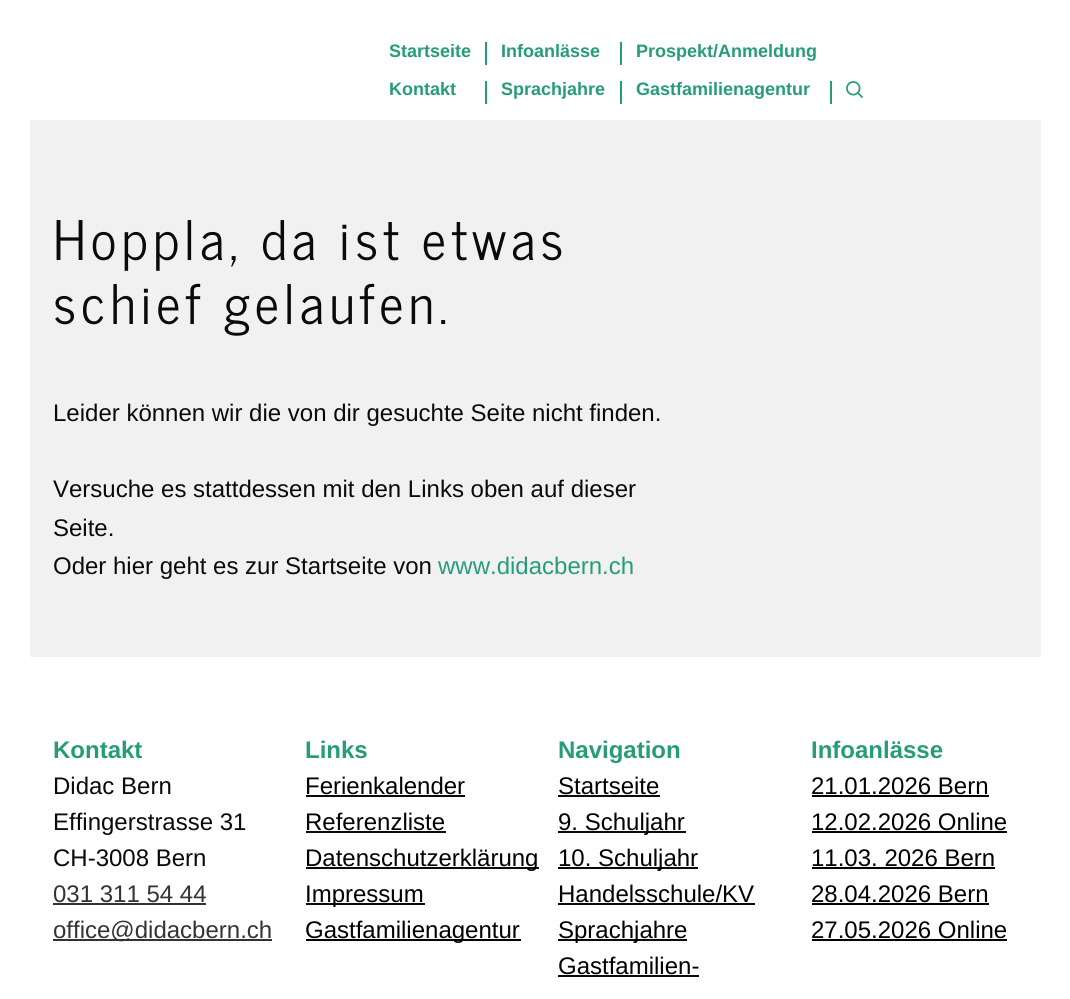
import math
import cairo


def use_color(cr, r, g, b):
  cr.set_source_rgb(r / 255, g / 255, b / 255)

def text(cr, x, y, s, family, size, color, bold=False, italic=False):
  cr.select_font_face(family, cairo.FONT_SLANT_ITALIC if italic else cairo.FONT_SLANT_NORMAL, cairo.FONT_WEIGHT_BOLD if bold else cairo.FONT_WEIGHT_NORMAL)
  cr.set_font_size(size)
  use_color(cr, *color)
  cr.move_to(x, y)
  cr.show_text(s)

def spaced_text(cr, x, y, s, letter, word):
  cr.move_to(x, y)
  for ch in s:
    cr.show_text(ch)
    cr.rel_move_to(letter + word * (ch == ' '), 0)

def box(cr, x, y, w, h, *color):
  use_color(cr, *color)
  cr.rectangle(x, y, w, h)
  cr.fill()

def picture(cr, path, x, y, w, h):
  cr.save()
  cr.set_source_surface(cairo.ImageSurface.create_from_png(path), x, y)
  cr.rectangle(x, y, w, h)
  cr.fill()
  cr.restore()

def draw(cr):
  use_color(cr, 255, 255, 255)
  cr.paint()
  box(cr, 30, 120, 1011, 537, 241, 241, 241)
  box(cr, 485, 42, 2, 23, 38, 156, 120)
  box(cr, 620, 42, 2, 23, 38, 156, 120)
  box(cr, 485, 81, 2, 23, 38, 156, 120)
  box(cr, 620, 81, 2, 23, 38, 156, 120)
  box(cr, 830, 81, 2, 23, 38, 156, 120)
  picture(cr, "img_01.png", 846, 81, 17, 17)
  box(cr, 53, 903, 153, 2, 51, 51, 51)
  box(cr, 53, 939, 219, 2, 51, 51, 51)
  box(cr, 306, 795, 159, 2, 10, 10, 10)
  box(cr, 306, 831, 140, 2, 10, 10, 10)
  box(cr, 306, 867, 233, 2, 10, 10, 10)
  box(cr, 306, 903, 119, 2, 10, 10, 10)
  box(cr, 306, 939, 215, 2, 0, 0, 0)
  box(cr, 558, 795, 102, 2, 10, 10, 10)
  box(cr, 558, 831, 128, 2, 10, 10, 10)
  box(cr, 558, 867, 140, 2, 10, 10, 10)
  box(cr, 558, 903, 197, 2, 10, 10, 10)
  box(cr, 558, 939, 129, 2, 10, 10, 10)
  box(cr, 558, 975, 141, 2, 10, 10, 10)
  box(cr, 812, 795, 177, 2, 0, 0, 0)
  box(cr, 812, 831, 195, 2, 0, 0, 0)
  box(cr, 812, 867, 183, 2, 0, 0, 0)
  box(cr, 812, 903, 177, 2, 0, 0, 0)
  box(cr, 812, 939, 195, 2, 0, 0, 0)
  text(cr, 389, 57, "Startseite", "Liberation Sans", 18, (38, 156, 120), bold=True)
  text(cr, 501, 57, "Infoanlässe", "Liberation Sans", 18, (38, 156, 120), bold=True)
  text(cr, 636, 57, "Prospekt/Anmeldung", "Liberation Sans", 18, (38, 156, 120), bold=True)
  text(cr, 389, 95, "Kontakt", "Liberation Sans", 18, (38, 156, 120), bold=True)
  text(cr, 501, 95, "Sprachjahre", "Liberation Sans", 18, (38, 156, 120), bold=True)
  text(cr, 636, 95, "Gastfamilienagentur", "Liberation Sans", 18, (38, 156, 120), bold=True)
  cr.select_font_face("News Cycle")
  cr.set_font_size(54)
  use_color(cr, 10, 10, 10)
  spaced_text(cr, 53, 260, "Hoppla, da ist etwas", 4.75, 0)
  spaced_text(cr, 53, 324, "schief gelaufen.", 4.75, 0)
  text(cr, 53, 421, "Leider können wir die von dir gesuchte Seite nicht finden.", "Liberation Sans", 24, (10, 10, 10))
  text(cr, 53, 497, "Versuche es stattdessen mit den Links oben auf dieser", "Liberation Sans", 24, (10, 10, 10))
  text(cr, 53, 536, "Seite.", "Liberation Sans", 24, (10, 10, 10))
  text(cr, 53, 574, "Oder hier geht es zur Startseite von", "Liberation Sans", 24, (10, 10, 10))
  text(cr, 438, 574, "www.didacbern.ch", "Liberation Sans", 24, (38, 156, 120))
  text(cr, 53, 758, "Kontakt", "Liberation Sans", 24, (38, 156, 120), bold=True)
  text(cr, 53, 794, "Didac Bern", "Liberation Sans", 24, (10, 10, 10))
  text(cr, 53, 830, "Effingerstrasse 31", "Liberation Sans", 24, (10, 10, 10))
  text(cr, 53, 866, "CH-3008 Bern", "Liberation Sans", 24, (10, 10, 10))
  text(cr, 53, 902, "031 311 54 44", "Liberation Sans", 24, (51, 51, 51))
  text(cr, 53, 938, "office@didacbern.ch", "Liberation Sans", 24, (51, 51, 51))
  text(cr, 305, 758, "Links", "Liberation Sans", 24, (38, 156, 120), bold=True)
  text(cr, 305, 794, "Ferienkalender", "Liberation Sans", 24, (0, 0, 0))
  text(cr, 305, 830, "Referenzliste", "Liberation Sans", 24, (0, 0, 0))
  text(cr, 305, 866, "Datenschutzerklärung", "Liberation Sans", 24, (0, 0, 0))
  text(cr, 305, 902, "Impressum", "Liberation Sans", 24, (0, 0, 0))
  text(cr, 305, 938, "Gastfamilienagentur", "Liberation Sans", 24, (0, 0, 0))
  text(cr, 558, 758, "Navigation", "Liberation Sans", 24, (38, 156, 120), bold=True)
  text(cr, 558, 794, "Startseite", "Liberation Sans", 24, (0, 0, 0))
  text(cr, 558, 830, "9. Schuljahr", "Liberation Sans", 24, (0, 0, 0))
  text(cr, 558, 866, "10. Schuljahr", "Liberation Sans", 24, (0, 0, 0))
  text(cr, 558, 902, "Handelsschule/KV", "Liberation Sans", 24, (0, 0, 0))
  text(cr, 558, 938, "Sprachjahre", "Liberation Sans", 24, (0, 0, 0))
  text(cr, 558, 974, "Gastfamilien-", "Liberation Sans", 24, (0, 0, 0))
  text(cr, 811, 758, "Infoanlässe", "Liberation Sans", 24, (38, 156, 120), bold=True)
  text(cr, 811, 794, "21.01.2026 Bern", "Liberation Sans", 24, (0, 0, 0))
  text(cr, 811, 830, "12.02.2026 Online", "Liberation Sans", 24, (0, 0, 0))
  text(cr, 811, 866, "11.03. 2026 Bern", "Liberation Sans", 24, (0, 0, 0))
  text(cr, 811, 902, "28.04.2026 Bern", "Liberation Sans", 24, (0, 0, 0))
  text(cr, 811, 938, "27.05.2026 Online", "Liberation Sans", 24, (0, 0, 0))


surface = cairo.ImageSurface(cairo.FORMAT_RGB24, 1070, 999)
cr = cairo.Context(surface)
options = cairo.FontOptions()
options.set_hint_metrics(cairo.HINT_METRICS_OFF)
options.set_hint_style(cairo.HINT_STYLE_NONE)
cr.set_font_options(options)
cr.set_miter_limit(4)
draw(cr)
surface.write_to_png("out.png")
